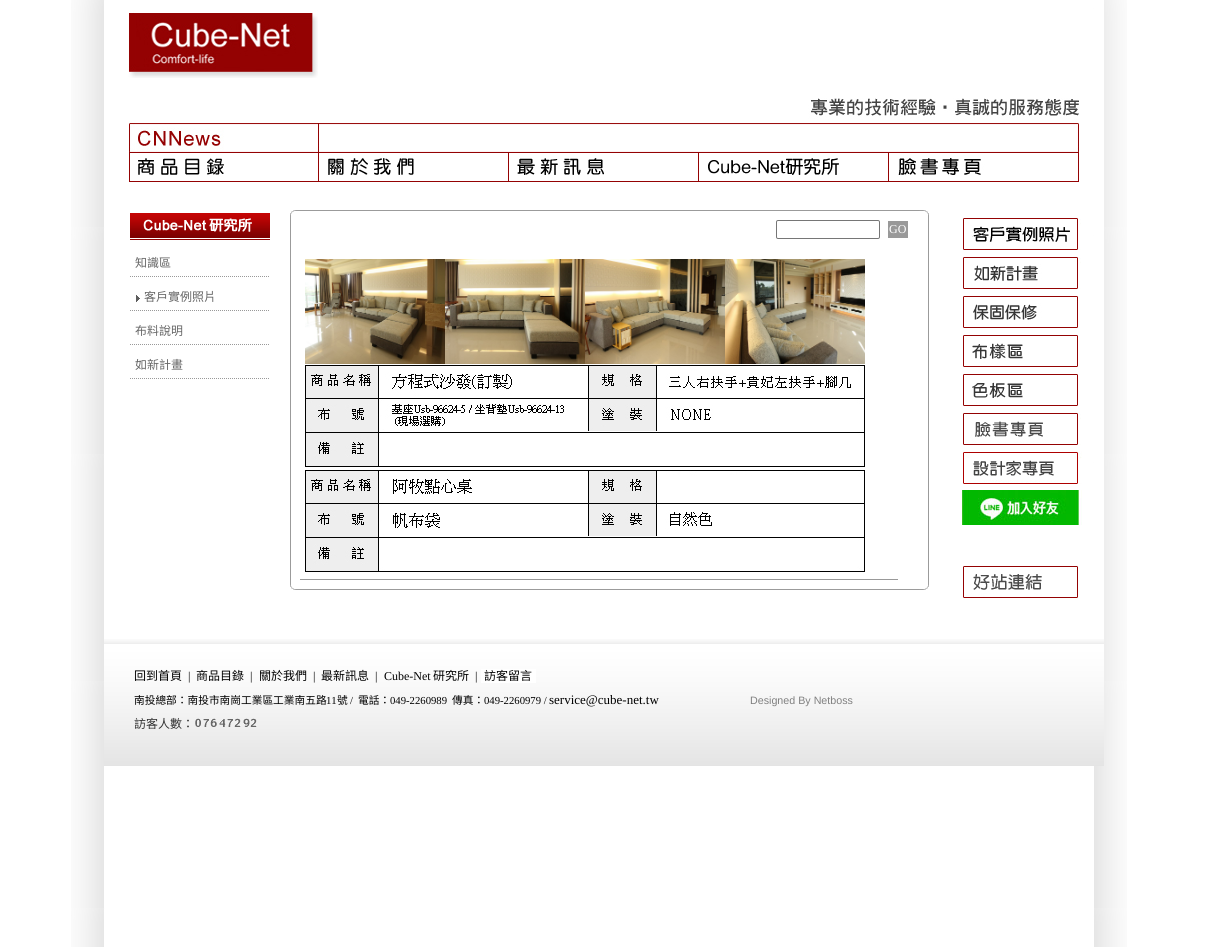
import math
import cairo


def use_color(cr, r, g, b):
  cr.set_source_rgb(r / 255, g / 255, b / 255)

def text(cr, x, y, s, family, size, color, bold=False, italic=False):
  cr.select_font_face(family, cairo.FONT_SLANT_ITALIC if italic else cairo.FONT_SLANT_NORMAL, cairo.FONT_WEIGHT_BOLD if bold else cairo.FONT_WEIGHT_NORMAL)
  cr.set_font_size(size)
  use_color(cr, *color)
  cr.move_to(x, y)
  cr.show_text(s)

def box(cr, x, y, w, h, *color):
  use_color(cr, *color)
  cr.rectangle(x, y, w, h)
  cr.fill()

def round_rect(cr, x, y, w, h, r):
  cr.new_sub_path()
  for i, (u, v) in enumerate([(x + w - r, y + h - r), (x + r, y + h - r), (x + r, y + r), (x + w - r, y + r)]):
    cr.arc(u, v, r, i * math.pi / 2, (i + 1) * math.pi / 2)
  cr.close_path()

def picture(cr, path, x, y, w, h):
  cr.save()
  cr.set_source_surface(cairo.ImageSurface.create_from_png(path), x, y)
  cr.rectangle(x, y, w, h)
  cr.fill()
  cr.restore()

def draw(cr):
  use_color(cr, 255, 255, 255)
  cr.paint()
  picture(cr, "img_01.png", 71, 0, 1056, 947)
  box(cr, 1094, 0, 10, 639, 255, 255, 255)
  picture(cr, "img_02.png", 128, 10, 190, 68)
  picture(cr, "img_03.png", 129, 98, 950, 54)
  picture(cr, "img_04.png", 129, 152, 190, 30)
  picture(cr, "img_05.png", 319, 152, 190, 30)
  picture(cr, "img_06.png", 509, 152, 190, 30)
  picture(cr, "img_07.png", 699, 152, 190, 30)
  picture(cr, "img_08.png", 889, 152, 190, 30)
  picture(cr, "img_09.png", 290, 210, 10, 10)
  box(cr, 300, 210, 619, 1, 155, 155, 155)
  picture(cr, "img_10.png", 919, 210, 10, 10)
  box(cr, 290, 220, 1, 360, 155, 155, 155)
  round_rect(cr, 776.5, 220.5, 103, 18, 1.5)
  use_color(cr, 118, 118, 118)
  cr.set_line_width(1)
  cr.stroke()
  box(cr, 888, 221, 20, 17, 153, 153, 153)
  box(cr, 300, 579, 598, 1, 153, 153, 153)
  picture(cr, "img_11.png", 305, 259, 140, 105)
  picture(cr, "img_12.png", 445, 259, 140, 105)
  picture(cr, "img_13.png", 585, 259, 140, 105)
  picture(cr, "img_14.png", 725, 259, 140, 105)
  picture(cr, "img_15.png", 305, 365, 560, 102)
  picture(cr, "img_16.png", 305, 470, 560, 102)
  box(cr, 928, 220, 1, 360, 155, 155, 155)
  picture(cr, "img_17.png", 290, 580, 10, 10)
  box(cr, 300, 589, 619, 1, 155, 155, 155)
  picture(cr, "img_18.png", 919, 580, 10, 10)
  picture(cr, "img_19.png", 130, 213, 140, 27)
  cr.new_path()
  cr.move_to(130, 276.5)
  cr.line_to(270, 276.5)
  use_color(cr, 153, 153, 153)
  cr.set_dash([1, 1])
  cr.stroke()
  cr.new_path()
  cr.move_to(130, 310.5)
  cr.line_to(270, 310.5)
  cr.stroke()
  picture(cr, "img_20.png", 136, 295, 4, 7)
  cr.new_path()
  cr.move_to(130, 344.5)
  cr.line_to(270, 344.5)
  cr.stroke()
  cr.new_path()
  cr.move_to(130, 378.5)
  cr.line_to(270, 378.5)
  cr.stroke()
  picture(cr, "img_21.png", 963, 218, 118, 32)
  picture(cr, "img_22.png", 963, 257, 118, 32)
  picture(cr, "img_23.png", 963, 296, 115, 32)
  picture(cr, "img_24.png", 963, 335, 115, 32)
  picture(cr, "img_25.png", 963, 374, 115, 32)
  picture(cr, "img_26.png", 963, 412, 118, 33)
  picture(cr, "img_27.png", 963, 451, 119, 33)
  picture(cr, "img_28.png", 962, 490, 120, 35)
  picture(cr, "img_29.png", 963, 565, 115, 35)
  picture(cr, "img_30.png", 104, 639, 1000, 127)
  box(cr, 481, 669, 55, 14, 255, 255, 255)
  picture(cr, "img_31.png", 195, 718, 6, 9)
  picture(cr, "img_32.png", 203, 719, 6, 8)
  picture(cr, "img_33.png", 210, 718, 7, 9)
  picture(cr, "img_34.png", 219, 719, 7, 8)
  picture(cr, "img_32.png", 227, 719, 6, 8)
  picture(cr, "img_35.png", 234, 718, 7, 9)
  picture(cr, "img_36.png", 243, 718, 7, 9)
  picture(cr, "img_35.png", 250, 718, 7, 9)
  text(cr, 889, 233, "GO", "Liberation Serif", 12, (255, 255, 255))
  text(cr, 135, 267, "知識區", "Noto Sans CJK TC", 12, (102, 102, 102))
  text(cr, 144, 301, "客戶實例照片", "Noto Sans CJK TC", 12, (102, 102, 102))
  text(cr, 135, 335, "布料說明", "Noto Sans CJK TC", 12, (102, 102, 102))
  text(cr, 135, 369, "如新計畫", "Noto Sans CJK TC", 12, (102, 102, 102))
  text(cr, 134, 680, "回到首頁", "Noto Sans CJK TC", 12, (0, 0, 0))
  text(cr, 188, 680, "|", "Liberation Serif", 12, (0, 0, 0))
  text(cr, 196, 680, "商品目錄", "Noto Sans CJK TC", 12, (0, 0, 0))
  text(cr, 250, 680, "|", "Liberation Serif", 12, (0, 0, 0))
  text(cr, 259, 680, "關於我們", "Noto Sans CJK TC", 12, (0, 0, 0))
  text(cr, 313, 680, "|", "Liberation Serif", 12, (0, 0, 0))
  text(cr, 321, 680, "最新訊息", "Noto Sans CJK TC", 12, (0, 0, 0))
  text(cr, 375, 680, "|", "Liberation Serif", 12, (0, 0, 0))
  text(cr, 384, 680, "Cube-Net", "Liberation Serif", 12, (0, 0, 0))
  text(cr, 433, 680, "研究所", "Noto Sans CJK TC", 12, (0, 0, 0))
  text(cr, 475, 680, "|", "Liberation Serif", 12, (0, 0, 0))
  text(cr, 484, 680, "訪客留言", "Noto Sans CJK TC", 12, (0, 0, 0))
  text(cr, 134, 704, "南投總部：南投市南崗工業區工業南五路", "Noto Sans CJK TC", 10.7, (0, 0, 0))
  text(cr, 326, 704, "11", "Liberation Serif", 10.7, (0, 0, 0))
  text(cr, 337, 704, "號", "Noto Sans CJK TC", 10.7, (0, 0, 0))
  text(cr, 350, 704, "/", "Liberation Serif", 10.7, (0, 0, 0))
  text(cr, 358, 704, "電話：", "Noto Sans CJK TC", 10.7, (0, 0, 0))
  text(cr, 390, 704, "049-2260989", "Liberation Serif", 10.7, (0, 0, 0))
  text(cr, 452, 704, "傳真：", "Noto Sans CJK TC", 10.7, (0, 0, 0))
  text(cr, 484, 704, "049-2260979 /", "Liberation Serif", 10.7, (0, 0, 0))
  text(cr, 549, 704, "service@cube-net.tw", "Liberation Serif", 13, (0, 0, 0))
  text(cr, 750, 704, "Designed By Netboss", "Liberation Sans", 10.7, (128, 128, 128))
  text(cr, 134, 728, "訪客人數：", "Noto Sans CJK TC", 12, (51, 51, 51))


surface = cairo.ImageSurface(cairo.FORMAT_RGB24, 1208, 947)
cr = cairo.Context(surface)
options = cairo.FontOptions()
options.set_hint_metrics(cairo.HINT_METRICS_OFF)
options.set_hint_style(cairo.HINT_STYLE_NONE)
cr.set_font_options(options)
cr.set_miter_limit(4)
draw(cr)
surface.write_to_png("out.png")
